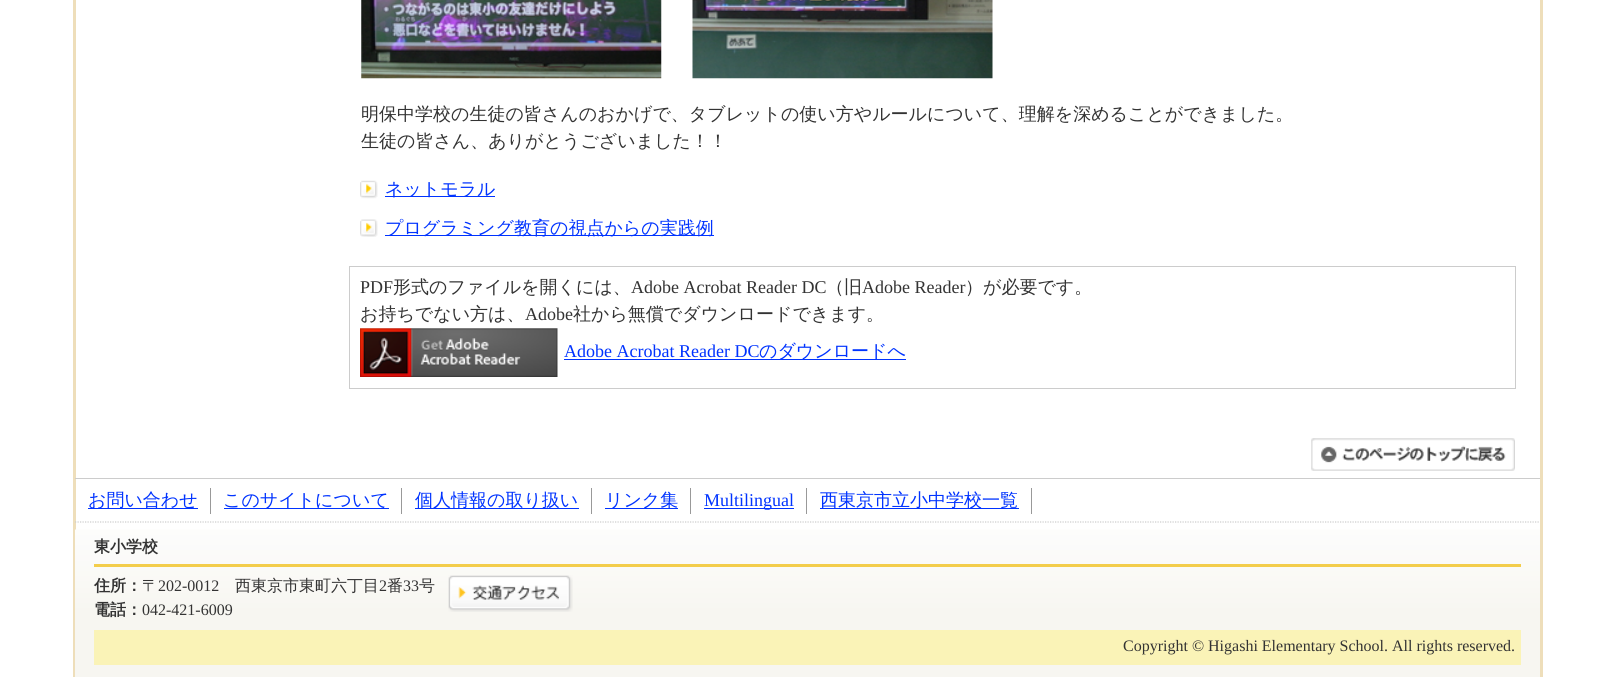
import math
import cairo


def use_color(cr, r, g, b):
  cr.set_source_rgb(r / 255, g / 255, b / 255)

def text(cr, x, y, s, family, size, color, bold=False, italic=False):
  cr.select_font_face(family, cairo.FONT_SLANT_ITALIC if italic else cairo.FONT_SLANT_NORMAL, cairo.FONT_WEIGHT_BOLD if bold else cairo.FONT_WEIGHT_NORMAL)
  cr.set_font_size(size)
  use_color(cr, *color)
  cr.move_to(x, y)
  cr.show_text(s)

def box(cr, x, y, w, h, *color):
  use_color(cr, *color)
  cr.rectangle(x, y, w, h)
  cr.fill()

def picture(cr, path, x, y, w, h):
  cr.save()
  cr.set_source_surface(cairo.ImageSurface.create_from_png(path), x, y)
  cr.rectangle(x, y, w, h)
  cr.fill()
  cr.restore()

def draw(cr):
  use_color(cr, 255, 255, 255)
  cr.paint()
  box(cr, 1540, 0, 3, 677, 238, 222, 186)
  box(cr, 73, 0, 3, 677, 238, 222, 186)
  picture(cr, "img_01.png", 361, 0, 301, 79)
  picture(cr, "img_02.png", 692, 0, 301, 79)
  picture(cr, "img_03.png", 360, 180, 18, 19)
  box(cr, 385, 196, 110, 1, 0, 51, 255)
  picture(cr, "img_04.png", 360, 219, 18, 18)
  box(cr, 385, 235, 329, 1, 0, 51, 255)
  cr.rectangle(349.5, 266.5, 1166, 122)
  use_color(cr, 204, 204, 204)
  cr.set_line_width(1)
  cr.stroke()
  picture(cr, "img_05.png", 360, 328, 198, 49)
  box(cr, 564, 359, 342, 1, 0, 51, 255)
  picture(cr, "img_06.png", 1311, 438, 204, 33)
  box(cr, 75, 478, 1465, 1, 204, 204, 204)
  box(cr, 210, 488, 1, 26, 153, 153, 153)
  box(cr, 88, 508, 110, 1, 0, 51, 255)
  box(cr, 401, 488, 1, 26, 153, 153, 153)
  box(cr, 224, 508, 165, 1, 0, 51, 255)
  box(cr, 591, 488, 1, 26, 153, 153, 153)
  box(cr, 415, 508, 164, 1, 0, 51, 255)
  box(cr, 690, 488, 1, 26, 153, 153, 153)
  box(cr, 605, 508, 73, 1, 0, 51, 255)
  box(cr, 806, 488, 1, 26, 153, 153, 153)
  box(cr, 704, 508, 90, 1, 0, 51, 255)
  box(cr, 1031, 488, 1, 26, 153, 153, 153)
  box(cr, 820, 508, 199, 1, 0, 51, 255)
  picture(cr, "img_07.png", 75, 529, 1465, 148)
  cr.new_path()
  cr.move_to(75, 522)
  cr.line_to(1540, 522)
  use_color(cr, 204, 204, 204)
  cr.set_line_width(1.2)
  cr.set_dash([1.25, 1.25])
  cr.stroke()
  box(cr, 94, 564, 1427, 3, 243, 205, 75)
  picture(cr, "img_08.png", 448, 575, 125, 37)
  box(cr, 94, 630, 1427, 35, 250, 243, 183)
  text(cr, 361, 120, "明保中学校の生徒の皆さんのおかげで、タブレットの使い方やルールについて、理解を深めることができました。", "WenQuanYi Zen Hei Medium", 18, (51, 51, 51))
  text(cr, 361, 147, "生徒の皆さん、ありがとうございました！！", "WenQuanYi Zen Hei Medium", 18, (51, 51, 51))
  text(cr, 385, 195, "ネットモラル", "WenQuanYi Zen Hei Medium", 18, (0, 51, 255))
  text(cr, 385, 234, "プログラミング教育の視点からの実践例", "WenQuanYi Zen Hei Medium", 18, (0, 51, 255))
  text(cr, 360, 293, "PDF", "Liberation Serif", 18, (51, 51, 51))
  text(cr, 393, 293, "形式のファイルを開くには、", "WenQuanYi Zen Hei Medium", 18, (51, 51, 51))
  text(cr, 631, 293, "Adobe Acrobat Reader DC", "Liberation Serif", 18, (51, 51, 51))
  text(cr, 826, 293, "（旧", "WenQuanYi Zen Hei Medium", 18, (51, 51, 51))
  text(cr, 862, 293, "Adobe Reader", "Liberation Serif", 18, (51, 51, 51))
  text(cr, 965, 293, "）が必要です。", "WenQuanYi Zen Hei Medium", 18, (51, 51, 51))
  text(cr, 360, 320, "お持ちでない方は、", "WenQuanYi Zen Hei Medium", 18, (51, 51, 51))
  text(cr, 525, 320, "Adobe", "Liberation Serif", 18, (51, 51, 51))
  text(cr, 573, 320, "社から無償でダウンロードできます。", "WenQuanYi Zen Hei Medium", 18, (51, 51, 51))
  text(cr, 564, 357, "Adobe Acrobat Reader DC", "Liberation Serif", 18, (0, 51, 255))
  text(cr, 759, 357, "のダウンロードへ", "WenQuanYi Zen Hei Medium", 18, (0, 51, 255))
  text(cr, 88, 506, "お問い合わせ", "WenQuanYi Zen Hei Medium", 18, (0, 51, 255))
  text(cr, 223, 506, "このサイトについて", "WenQuanYi Zen Hei Medium", 18, (0, 51, 255))
  text(cr, 415, 506, "個人情報の取り扱い", "WenQuanYi Zen Hei Medium", 18, (0, 51, 255))
  text(cr, 605, 506, "リンク集", "WenQuanYi Zen Hei Medium", 18, (0, 51, 255))
  text(cr, 704, 506, "Multilingual", "Liberation Serif", 18, (0, 51, 255))
  text(cr, 820, 506, "西東京市立小中学校一覧", "WenQuanYi Zen Hei Medium", 18, (0, 51, 255))
  text(cr, 94, 552, "東小学校", "WenQuanYi Zen Hei", 16, (51, 51, 51), bold=True)
  text(cr, 94, 591, "住所：", "WenQuanYi Zen Hei", 16, (51, 51, 51), bold=True)
  text(cr, 142, 591, "〒", "WenQuanYi Zen Hei Medium", 16, (51, 51, 51))
  text(cr, 158, 591, "202-0012", "Liberation Serif", 16, (51, 51, 51))
  text(cr, 235, 591, "西東京市東町六丁目", "WenQuanYi Zen Hei Medium", 16, (51, 51, 51))
  text(cr, 379, 591, "2", "Liberation Serif", 16, (51, 51, 51))
  text(cr, 387, 591, "番", "WenQuanYi Zen Hei Medium", 16, (51, 51, 51))
  text(cr, 403, 591, "33", "Liberation Serif", 16, (51, 51, 51))
  text(cr, 419, 591, "号", "WenQuanYi Zen Hei Medium", 16, (51, 51, 51))
  text(cr, 94, 615, "電話：", "WenQuanYi Zen Hei", 16, (51, 51, 51), bold=True)
  text(cr, 142, 615, "042-421-6009", "Liberation Serif", 16, (51, 51, 51))
  text(cr, 1123, 651, "Copyright © Higashi Elementary School. All rights reserved.", "Liberation Serif", 16, (51, 51, 51))


surface = cairo.ImageSurface(cairo.FORMAT_RGB24, 1614, 677)
cr = cairo.Context(surface)
options = cairo.FontOptions()
options.set_hint_metrics(cairo.HINT_METRICS_OFF)
options.set_hint_style(cairo.HINT_STYLE_NONE)
cr.set_font_options(options)
cr.set_miter_limit(4)
draw(cr)
surface.write_to_png("out.png")
